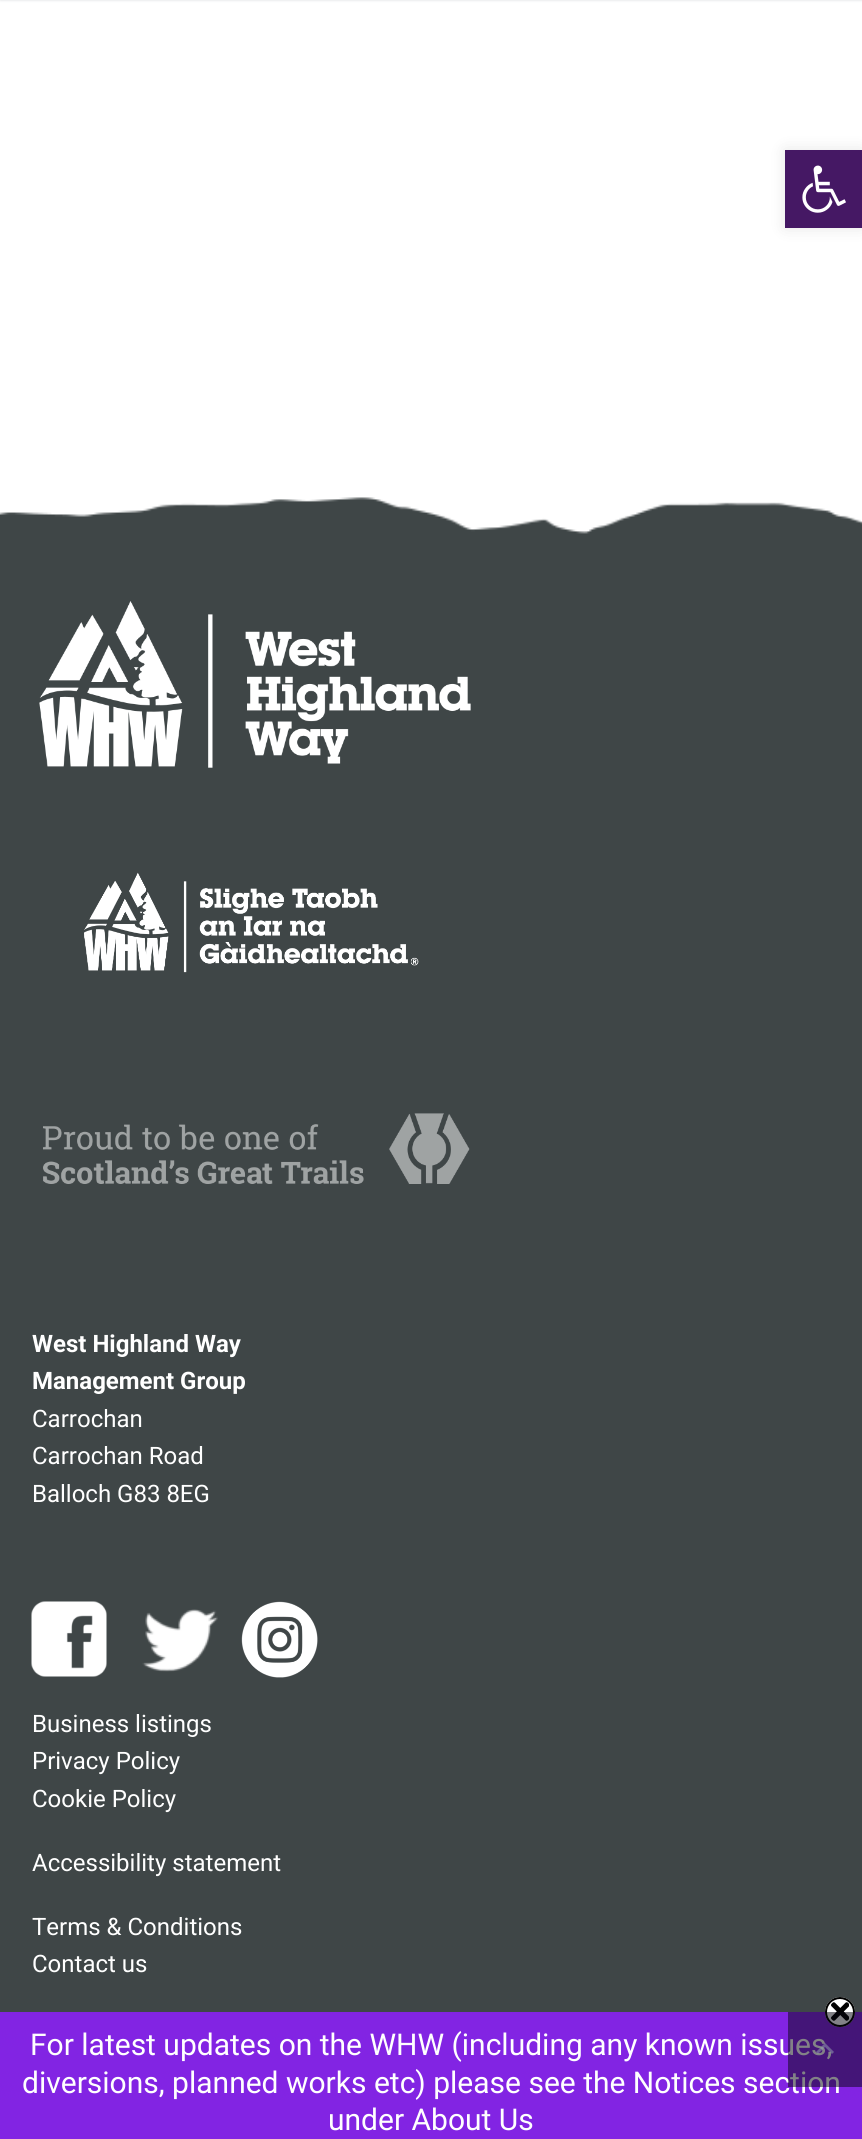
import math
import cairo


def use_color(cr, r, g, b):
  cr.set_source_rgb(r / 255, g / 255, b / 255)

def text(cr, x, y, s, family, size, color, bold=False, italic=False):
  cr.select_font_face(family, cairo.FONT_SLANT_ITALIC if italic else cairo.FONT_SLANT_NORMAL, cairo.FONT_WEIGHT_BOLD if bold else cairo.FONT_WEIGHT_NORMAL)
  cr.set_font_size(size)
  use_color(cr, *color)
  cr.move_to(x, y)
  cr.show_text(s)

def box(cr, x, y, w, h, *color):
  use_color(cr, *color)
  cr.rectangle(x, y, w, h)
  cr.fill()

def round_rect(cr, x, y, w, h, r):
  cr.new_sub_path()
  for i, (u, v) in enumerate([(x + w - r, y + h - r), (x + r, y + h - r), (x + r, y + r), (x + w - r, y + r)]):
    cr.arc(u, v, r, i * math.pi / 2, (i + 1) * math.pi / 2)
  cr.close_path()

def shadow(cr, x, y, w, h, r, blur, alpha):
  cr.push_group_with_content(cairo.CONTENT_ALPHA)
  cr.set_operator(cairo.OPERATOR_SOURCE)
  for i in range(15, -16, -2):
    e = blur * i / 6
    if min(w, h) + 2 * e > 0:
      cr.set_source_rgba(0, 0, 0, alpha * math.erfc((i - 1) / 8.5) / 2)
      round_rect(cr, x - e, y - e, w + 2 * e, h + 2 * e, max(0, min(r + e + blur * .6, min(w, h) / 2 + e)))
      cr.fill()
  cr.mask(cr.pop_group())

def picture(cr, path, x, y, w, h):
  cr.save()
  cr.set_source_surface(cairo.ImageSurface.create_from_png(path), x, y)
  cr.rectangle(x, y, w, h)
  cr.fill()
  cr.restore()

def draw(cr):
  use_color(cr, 255, 255, 255)
  cr.paint()
  use_color(cr, 0, 0, 0)
  shadow(cr, 785, 150, 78, 78, 0, 7.5, 0.1)
  box(cr, 785, 150, 77, 78, 69, 24, 100)
  picture(cr, "img_01.png", 802, 165, 44, 48)
  use_color(cr, 56, 69, 84)
  shadow(cr, 0, -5, 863, 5, 0, 1.5, 0.2)
  picture(cr, "img_02.png", 0, 497, 862, 1515)
  picture(cr, "img_03.png", 39, 601, 432, 167)
  picture(cr, "img_04.png", 84, 872, 335, 101)
  picture(cr, "img_05.png", 43, 1113, 427, 71)
  picture(cr, "img_06.png", 31, 1601, 76, 76)
  picture(cr, "img_07.png", 142, 1609, 76, 63)
  picture(cr, "img_08.png", 241, 1601, 77, 77)
  box(cr, 0, 2012, 862, 127, 130, 36, 227)
  use_color(cr, 255, 255, 255)
  cr.arc(840, 2012, 15, 0, 2 * math.pi)
  cr.fill()
  picture(cr, "img_09.png", 831, 2002, 18, 19)
  cr.arc(840, 2012, 14, 0, 2 * math.pi)
  use_color(cr, 0, 0, 0)
  cr.stroke()
  text(cr, 32, 1352, "West Highland Way", "Roboto", 24, (255, 255, 255), bold=True)
  text(cr, 32, 1389, "Management Group", "Roboto", 24, (255, 255, 255), bold=True)
  text(cr, 32, 1427, "Carrochan", "Roboto", 24, (255, 255, 255))
  text(cr, 32, 1464, "Carrochan Road", "Roboto", 24, (255, 255, 255))
  text(cr, 32, 1502, "Balloch G83 8EG", "Roboto", 24, (255, 255, 255))
  text(cr, 32, 1732, "Business listings", "Roboto", 24, (255, 255, 255))
  text(cr, 32, 1769, "Privacy Policy", "Roboto", 24, (255, 255, 255))
  text(cr, 32, 1807, "Cookie Policy", "Roboto", 24, (255, 255, 255))
  text(cr, 32, 1871, "Accessibility statement", "Roboto", 24, (255, 255, 255))
  text(cr, 32, 1935, "Terms & Conditions", "Roboto", 24, (255, 255, 255))
  text(cr, 32, 1972, "Contact us", "Roboto", 24, (255, 255, 255))
  text(cr, 30, 2055, "For latest updates on the WHW (including any known issues,", "Roboto", 30, (255, 255, 255))
  text(cr, 22, 2093, "diversions, planned works etc) please see the Notices section", "Roboto", 30, (255, 255, 255))
  cr.set_source_rgba(0.024, 0.024, 0.059, 0.5)
  cr.rectangle(788, 2012, 74, 75)
  cr.fill()
  cr.set_source_rgba(0.6, 0.663, 0.71, 0.5)
  cr.new_path()
  cr.move_to(818, 2054)
  cr.line_to(825, 2047)
  cr.line_to(832, 2054)
  cr.line_to(834, 2052)
  cr.line_to(825, 2043)
  cr.line_to(816, 2052)
  cr.close_path()
  cr.fill()
  text(cr, 328, 2130, "under About Us", "Roboto", 30, (255, 255, 255))


surface = cairo.ImageSurface(cairo.FORMAT_RGB24, 862, 2139)
cr = cairo.Context(surface)
options = cairo.FontOptions()
options.set_hint_metrics(cairo.HINT_METRICS_OFF)
options.set_hint_style(cairo.HINT_STYLE_NONE)
cr.set_font_options(options)
cr.set_miter_limit(4)
draw(cr)
surface.write_to_png("out.png")
